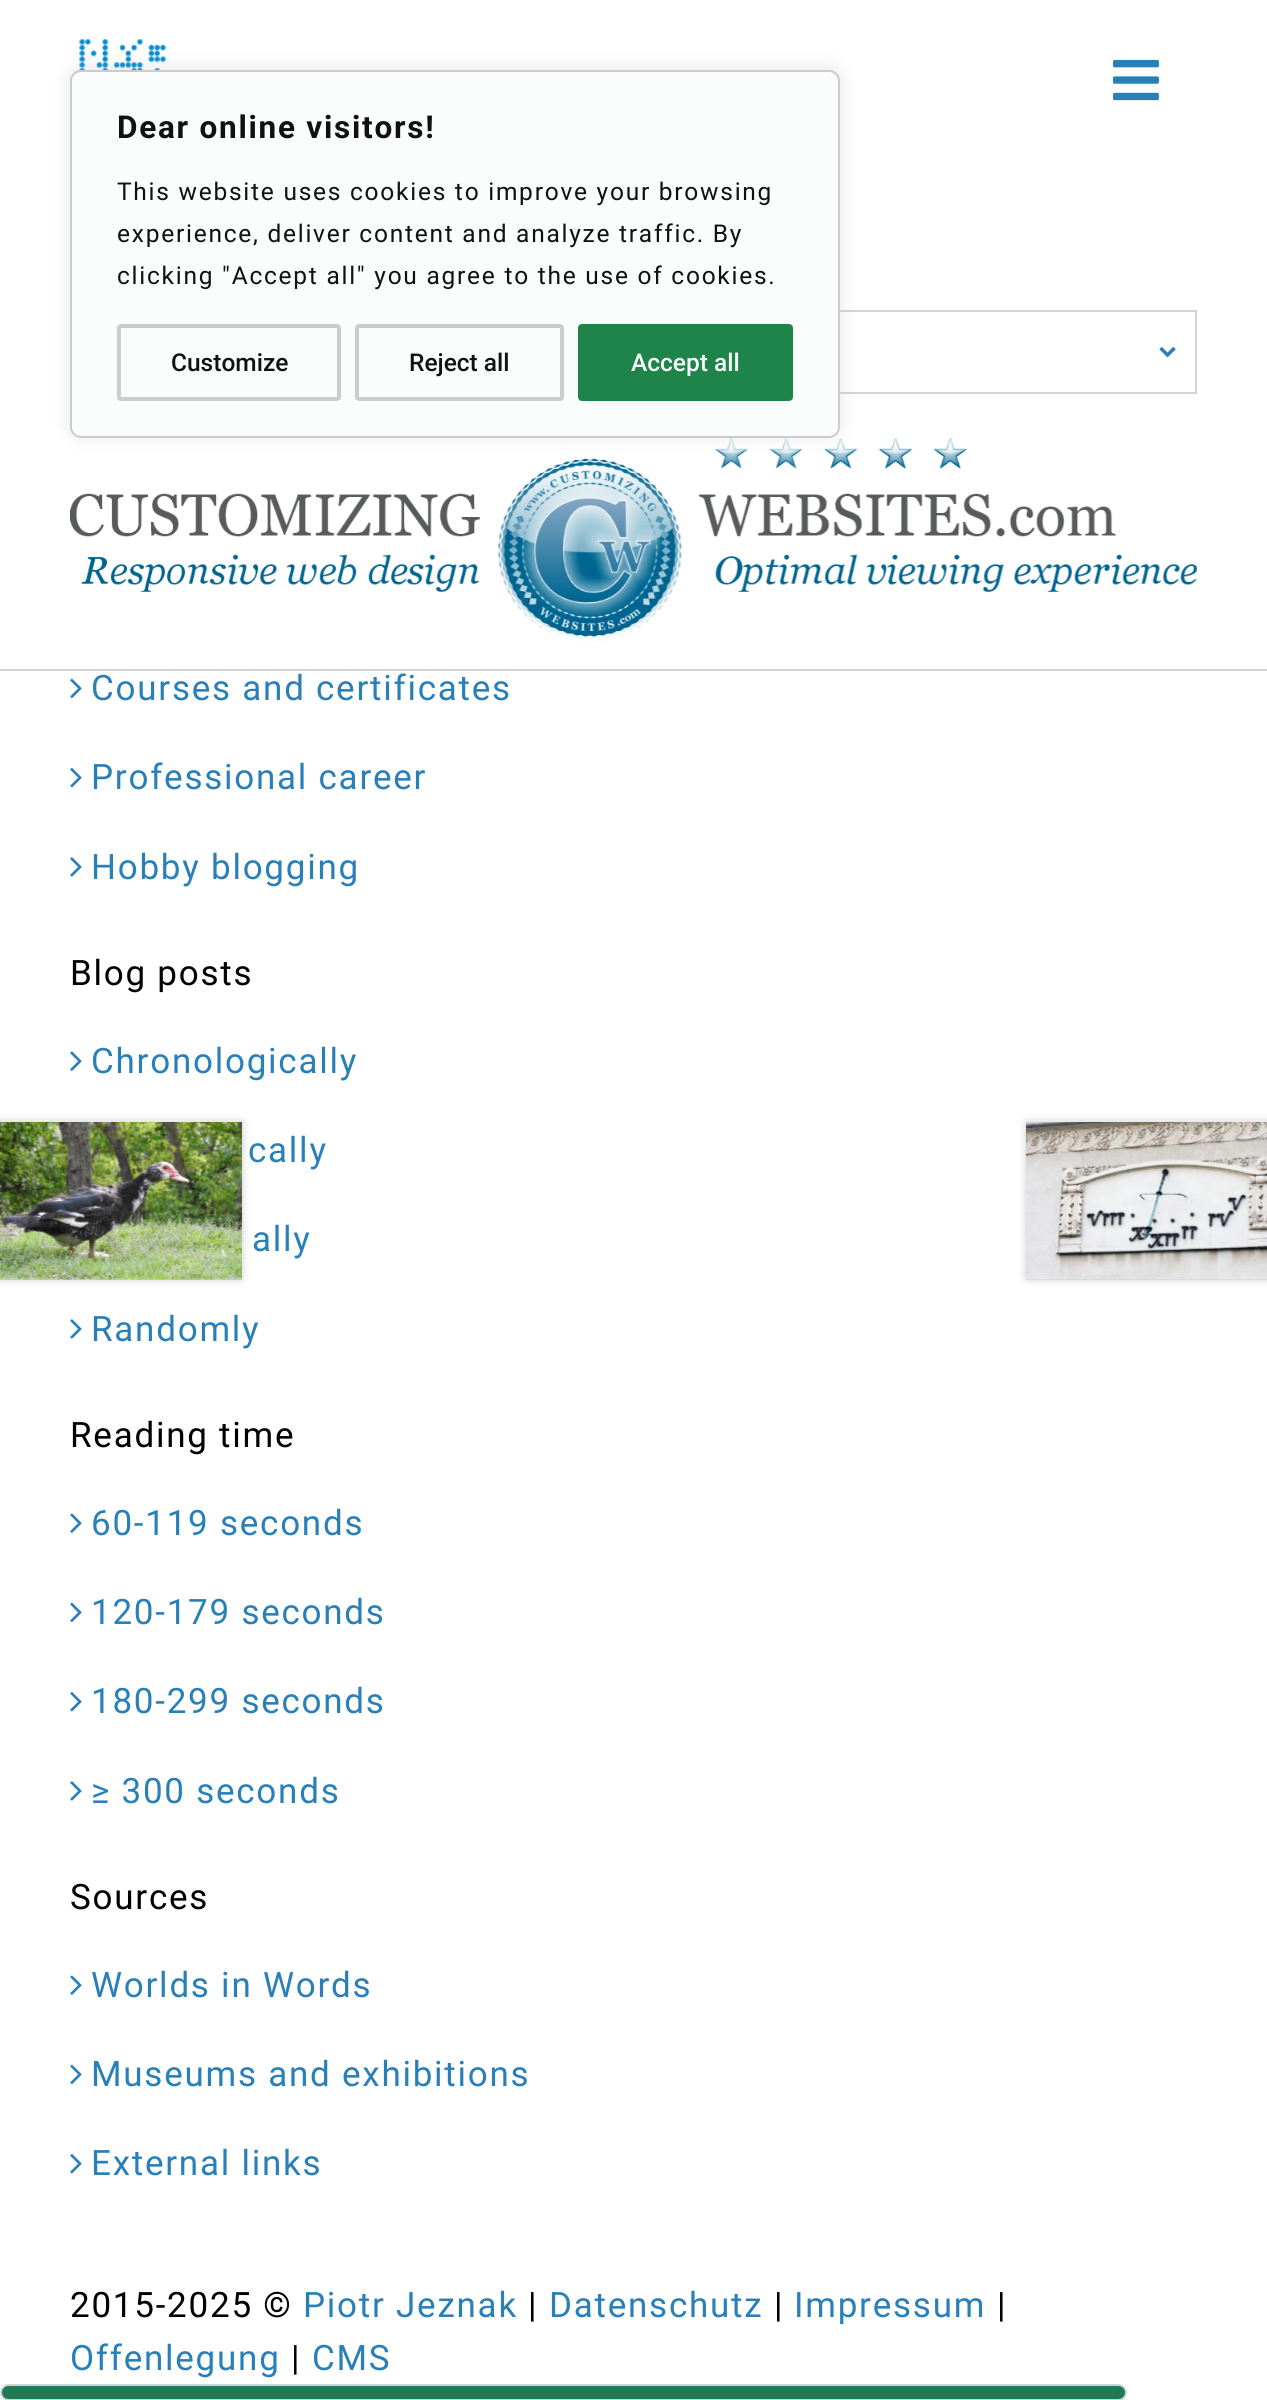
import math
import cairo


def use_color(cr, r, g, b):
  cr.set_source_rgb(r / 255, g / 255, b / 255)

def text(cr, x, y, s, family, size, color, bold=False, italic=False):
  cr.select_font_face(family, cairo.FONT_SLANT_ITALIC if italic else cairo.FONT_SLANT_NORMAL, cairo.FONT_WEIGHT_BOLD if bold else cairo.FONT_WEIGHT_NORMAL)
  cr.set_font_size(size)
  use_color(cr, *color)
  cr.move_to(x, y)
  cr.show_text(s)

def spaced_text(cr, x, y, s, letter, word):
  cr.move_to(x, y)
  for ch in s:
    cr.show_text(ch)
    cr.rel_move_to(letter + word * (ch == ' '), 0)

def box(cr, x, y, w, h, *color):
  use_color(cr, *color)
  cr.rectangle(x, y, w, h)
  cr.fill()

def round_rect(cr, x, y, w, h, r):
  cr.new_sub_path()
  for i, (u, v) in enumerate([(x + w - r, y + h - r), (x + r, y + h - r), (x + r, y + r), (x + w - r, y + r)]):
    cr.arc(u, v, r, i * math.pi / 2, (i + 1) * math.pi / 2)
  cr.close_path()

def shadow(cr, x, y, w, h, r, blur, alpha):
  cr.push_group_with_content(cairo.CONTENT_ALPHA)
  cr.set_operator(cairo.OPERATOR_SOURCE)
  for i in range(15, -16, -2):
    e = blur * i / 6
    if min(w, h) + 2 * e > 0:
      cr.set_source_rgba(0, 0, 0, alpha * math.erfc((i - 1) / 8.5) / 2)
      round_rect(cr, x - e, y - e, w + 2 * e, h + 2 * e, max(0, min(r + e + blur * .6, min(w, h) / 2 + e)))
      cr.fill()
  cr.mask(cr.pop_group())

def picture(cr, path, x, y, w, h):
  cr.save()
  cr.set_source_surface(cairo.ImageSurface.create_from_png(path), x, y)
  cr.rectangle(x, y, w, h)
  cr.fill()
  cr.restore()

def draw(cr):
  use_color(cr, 255, 255, 255)
  cr.paint()
  picture(cr, "img_01.png", 79, 39, 87, 32)
  cr.rectangle(442, 311, 754, 82)
  use_color(cr, 212, 212, 216)
  cr.stroke()
  picture(cr, "img_03.png", 70, 438, 1127, 204)
  use_color(cr, 172, 171, 171)
  shadow(cr, 70, 68, 770, 368, 11, 9, 0.3)
  use_color(cr, 251, 252, 252)
  round_rect(cr, 71, 71, 768, 366, 10)
  cr.fill_preserve()
  use_color(cr, 204, 204, 204)
  cr.stroke()
  round_rect(cr, 119, 326, 220, 73, 2)
  cr.set_line_width(4)
  cr.stroke()
  round_rect(cr, 357, 326, 205, 73, 2)
  cr.stroke()
  use_color(cr, 30, 132, 73)
  round_rect(cr, 580, 326, 211, 73, 2)
  cr.fill_preserve()
  cr.stroke()
  box(cr, 0, 669, 1267, 2, 212, 212, 216)
  picture(cr, "img_02.png", 1113, 59, 46, 42)
  cr.new_path()
  cr.move_to(1160.5, 348)
  cr.line_to(1167.5, 355)
  cr.line_to(1174.5, 348)
  use_color(cr, 41, 128, 185)
  cr.set_line_width(3.5)
  cr.stroke()
  picture(cr, "img_04.png", 70, 678, 12, 21)
  picture(cr, "img_05.png", 70, 768, 12, 20)
  picture(cr, "img_06.png", 70, 857, 12, 20)
  picture(cr, "img_07.png", 70, 1051, 12, 20)
  picture(cr, "img_06.png", 70, 1319, 12, 20)
  picture(cr, "img_07.png", 70, 1513, 12, 20)
  picture(cr, "img_04.png", 70, 1602, 12, 21)
  picture(cr, "img_05.png", 70, 1692, 12, 20)
  picture(cr, "img_06.png", 70, 1781, 12, 20)
  picture(cr, "img_07.png", 70, 1975, 12, 20)
  picture(cr, "img_04.png", 70, 2064, 12, 21)
  picture(cr, "img_05.png", 70, 2154, 12, 20)
  use_color(cr, 31, 122, 85)
  round_rect(cr, 1, 2385, 1125, 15, 7.5)
  cr.fill_preserve()
  use_color(cr, 212, 212, 216)
  cr.set_line_width(2)
  cr.stroke()
  picture(cr, "img_08.png", 0, 1122, 242, 158)
  cr.save()
  cr.set_fill_rule(cairo.FILL_RULE_EVEN_ODD)
  cr.new_path()
  cr.move_to(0, 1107)
  cr.line_to(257, 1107)
  cr.line_to(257, 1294)
  cr.line_to(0, 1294)
  cr.close_path()
  cr.move_to(-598, 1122)
  cr.line_to(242, 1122)
  cr.line_to(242, 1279)
  cr.line_to(-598, 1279)
  cr.close_path()
  cr.clip()
  use_color(cr, 0, 0, 0)
  shadow(cr, -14, 1122, 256, 157, 0, 4.5, 0.2)
  cr.restore()
  picture(cr, "img_09.png", 1026, 1122, 241, 158)
  cr.save()
  cr.set_fill_rule(cairo.FILL_RULE_EVEN_ODD)
  cr.new_path()
  cr.move_to(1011, 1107)
  cr.line_to(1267, 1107)
  cr.line_to(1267, 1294)
  cr.line_to(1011, 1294)
  cr.close_path()
  cr.move_to(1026, 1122)
  cr.line_to(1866, 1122)
  cr.line_to(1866, 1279)
  cr.line_to(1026, 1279)
  cr.close_path()
  cr.clip()
  use_color(cr, 0, 0, 0)
  shadow(cr, 1026, 1122, 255, 157, 0, 4.5, 0.2)
  cr.restore()
  cr.select_font_face("Roboto", cairo.FONT_SLANT_NORMAL, cairo.FONT_WEIGHT_BOLD)
  cr.set_font_size(31.5)
  use_color(cr, 17, 17, 17)
  spaced_text(cr, 117, 138, "Dear online visitors!", 1.75, 0)
  cr.select_font_face("Roboto")
  cr.set_font_size(24.5)
  spaced_text(cr, 117, 200, "This website uses cookies to improve your browsing", 1.75, 0)
  spaced_text(cr, 117, 242, "experience, deliver content and analyze traffic. By", 1.75, 0)
  spaced_text(cr, 117, 284, "clicking \"Accept all\" you agree to the use of cookies.", 1.75, 0)
  text(cr, 171, 371, "Customize", "Roboto Medium", 24.5, (17, 17, 17))
  text(cr, 409, 371, "Reject all", "Roboto Medium", 24.5, (17, 17, 17))
  text(cr, 631, 371, "Accept all", "Roboto Medium", 24.5, (251, 252, 252))
  cr.select_font_face("Roboto")
  cr.set_font_size(35)
  use_color(cr, 41, 128, 185)
  spaced_text(cr, 91, 700, "Courses and certificates", 1.75, 0)
  spaced_text(cr, 91, 789, "Professional career", 1.75, 0)
  spaced_text(cr, 91, 879, "Hobby blogging", 1.75, 0)
  use_color(cr, 0, 0, 0)
  spaced_text(cr, 70, 985, "Blog posts", 1.75, 0)
  use_color(cr, 41, 128, 185)
  spaced_text(cr, 91, 1073, "Chronologically", 1.75, 0)
  spaced_text(cr, 248, 1162, "cally", 1.75, 0)
  spaced_text(cr, 252, 1251, "ally", 1.75, 0)
  spaced_text(cr, 91, 1341, "Randomly", 1.75, 0)
  use_color(cr, 0, 0, 0)
  spaced_text(cr, 70, 1447, "Reading time", 1.75, 0)
  use_color(cr, 41, 128, 185)
  spaced_text(cr, 91, 1535, "60-119 seconds", 1.75, 0)
  spaced_text(cr, 91, 1624, "120-179 seconds", 1.75, 0)
  spaced_text(cr, 91, 1713, "180-299 seconds", 1.75, 0)
  spaced_text(cr, 91, 1803, "≥ 300 seconds", 1.75, 0)
  use_color(cr, 0, 0, 0)
  spaced_text(cr, 70, 1909, "Sources", 1.75, 0)
  use_color(cr, 41, 128, 185)
  spaced_text(cr, 91, 1997, "Worlds in Words", 1.75, 0)
  spaced_text(cr, 91, 2086, "Museums and exhibitions", 1.75, 0)
  spaced_text(cr, 91, 2175, "External links", 1.75, 0)
  use_color(cr, 0, 0, 0)
  spaced_text(cr, 70, 2317, "2015-2025 ©", 1.75, 0)
  use_color(cr, 41, 128, 185)
  spaced_text(cr, 303, 2317, "Piotr Jeznak", 1.75, 0)
  use_color(cr, 0, 0, 0)
  spaced_text(cr, 528, 2317, "|", 1.75, 0)
  use_color(cr, 41, 128, 185)
  spaced_text(cr, 549, 2317, "Datenschutz", 1.75, 0)
  use_color(cr, 0, 0, 0)
  spaced_text(cr, 774, 2317, "|", 1.75, 0)
  use_color(cr, 41, 128, 185)
  spaced_text(cr, 794, 2317, "Impressum", 1.75, 0)
  use_color(cr, 0, 0, 0)
  spaced_text(cr, 997, 2317, "|", 1.75, 0)
  use_color(cr, 41, 128, 185)
  spaced_text(cr, 70, 2370, "Offenlegung", 1.75, 0)
  use_color(cr, 0, 0, 0)
  spaced_text(cr, 291, 2370, "|", 1.75, 0)
  use_color(cr, 41, 128, 185)
  spaced_text(cr, 312, 2370, "CMS", 1.75, 0)


surface = cairo.ImageSurface(cairo.FORMAT_RGB24, 1267, 2400)
cr = cairo.Context(surface)
options = cairo.FontOptions()
options.set_hint_metrics(cairo.HINT_METRICS_OFF)
options.set_hint_style(cairo.HINT_STYLE_NONE)
cr.set_font_options(options)
cr.set_miter_limit(4)
draw(cr)
surface.write_to_png("out.png")
